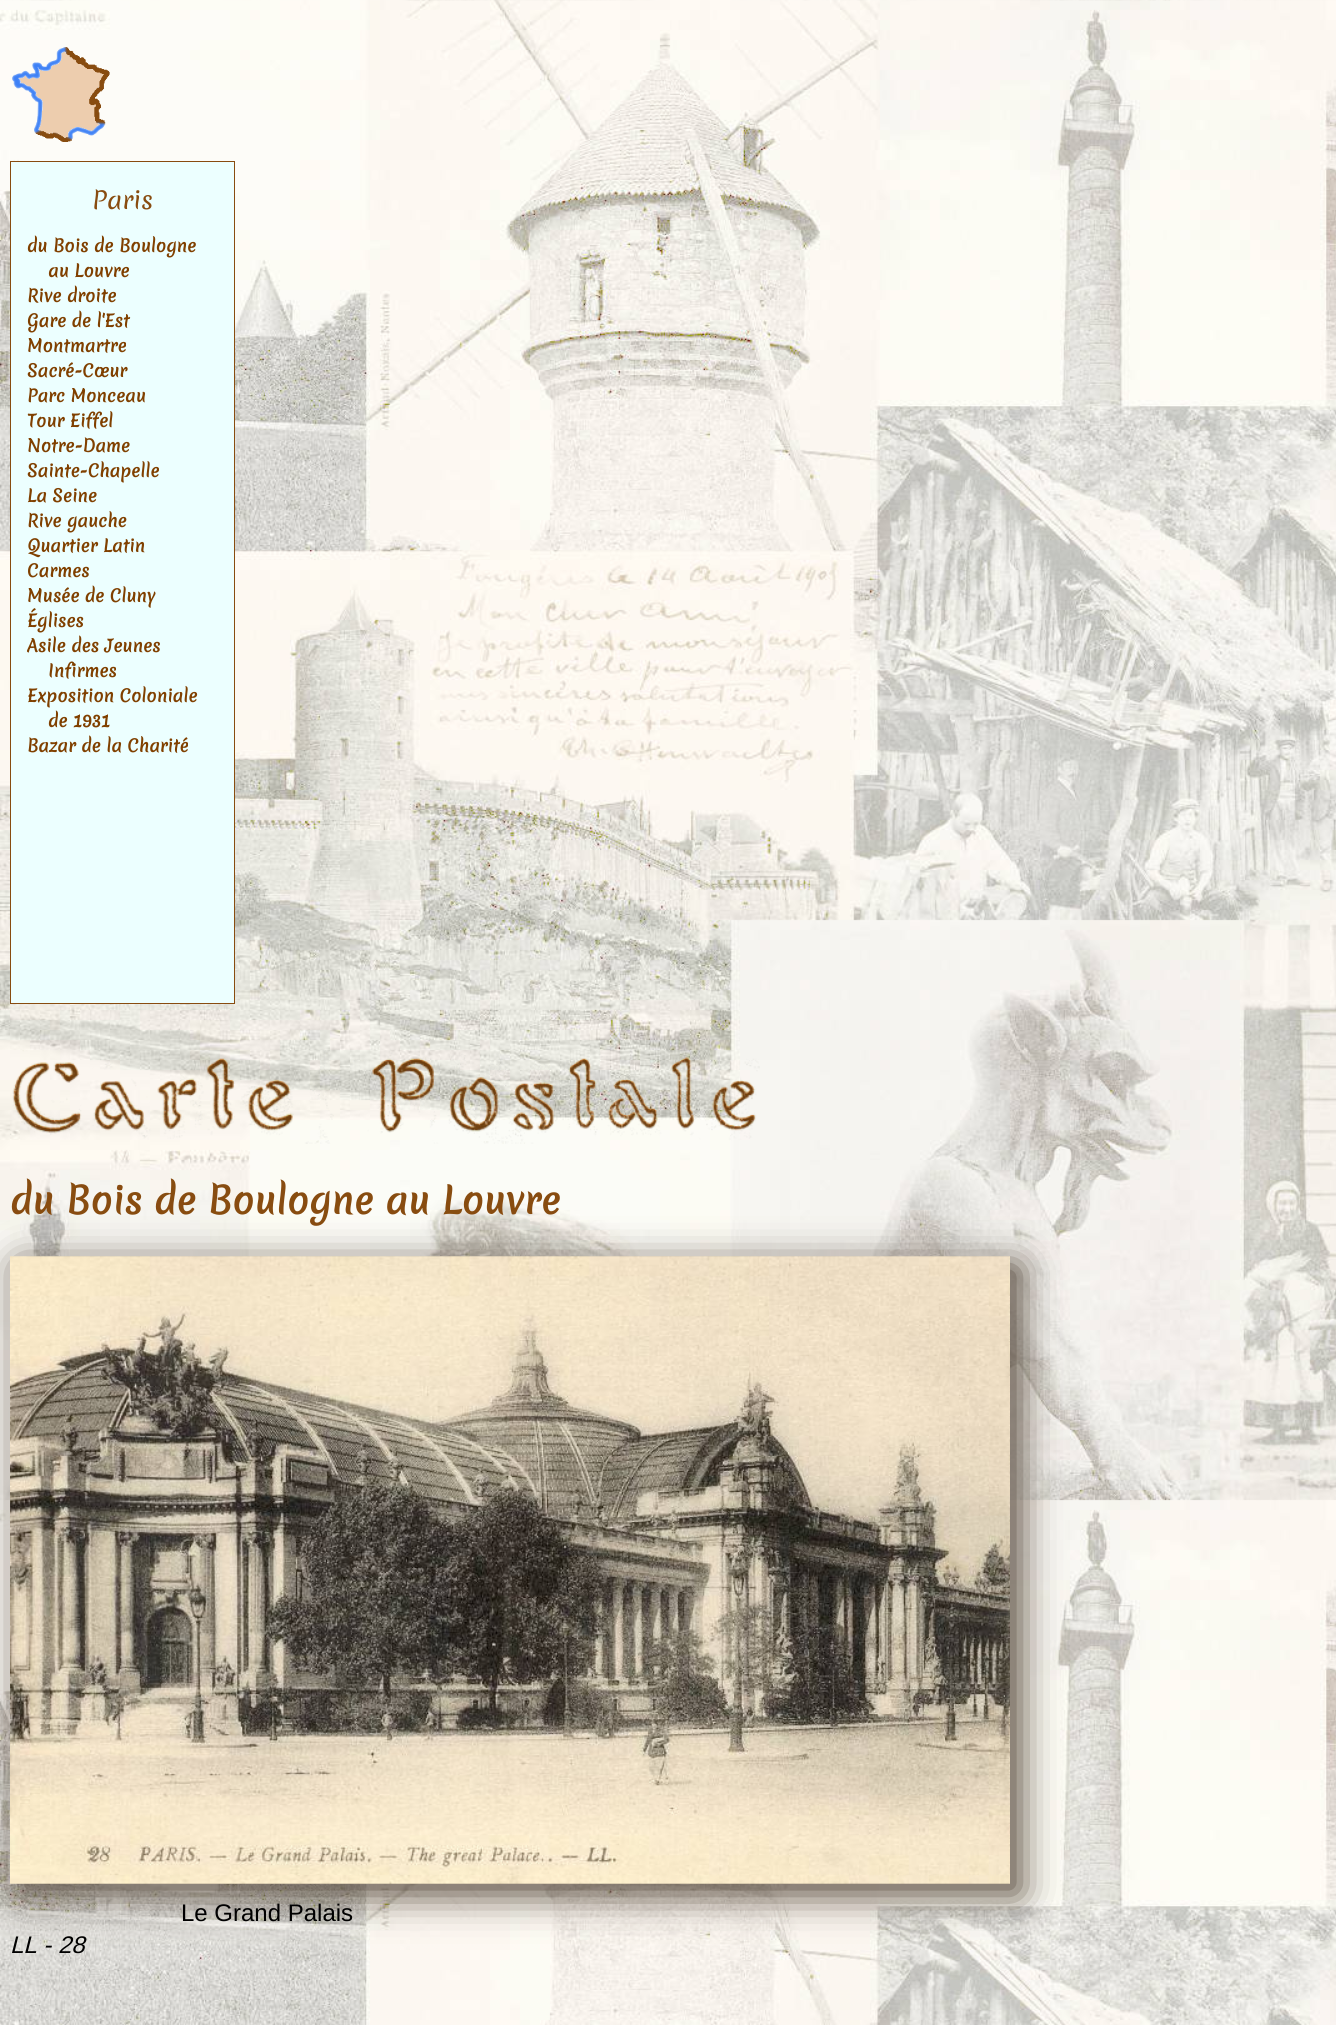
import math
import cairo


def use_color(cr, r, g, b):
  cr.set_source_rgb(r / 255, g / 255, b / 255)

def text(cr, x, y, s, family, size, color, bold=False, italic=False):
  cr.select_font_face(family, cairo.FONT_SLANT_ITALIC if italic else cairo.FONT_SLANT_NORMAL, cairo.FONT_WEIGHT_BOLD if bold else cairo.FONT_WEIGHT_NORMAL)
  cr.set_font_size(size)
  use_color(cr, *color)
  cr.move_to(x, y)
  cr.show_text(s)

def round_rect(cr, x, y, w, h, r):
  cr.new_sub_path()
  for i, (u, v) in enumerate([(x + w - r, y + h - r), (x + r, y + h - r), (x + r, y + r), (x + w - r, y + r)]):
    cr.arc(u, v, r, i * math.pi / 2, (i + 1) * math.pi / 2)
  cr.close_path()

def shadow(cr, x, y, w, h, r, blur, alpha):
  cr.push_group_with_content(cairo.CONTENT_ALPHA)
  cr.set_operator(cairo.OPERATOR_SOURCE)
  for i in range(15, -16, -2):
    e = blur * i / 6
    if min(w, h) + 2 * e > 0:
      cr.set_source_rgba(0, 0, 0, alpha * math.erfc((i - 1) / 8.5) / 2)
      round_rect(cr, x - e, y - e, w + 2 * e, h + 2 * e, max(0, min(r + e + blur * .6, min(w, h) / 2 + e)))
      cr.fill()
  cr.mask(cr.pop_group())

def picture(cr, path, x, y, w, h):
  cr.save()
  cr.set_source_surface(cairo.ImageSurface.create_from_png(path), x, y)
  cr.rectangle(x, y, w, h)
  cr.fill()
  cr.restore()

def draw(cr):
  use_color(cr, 255, 255, 255)
  cr.paint()
  picture(cr, "img_01.png", 0, 0, 1336, 2025)
  picture(cr, "img_02.png", 12, 47, 98, 95)
  use_color(cr, 236, 255, 255)
  cr.rectangle(10.5, 161.5, 224, 842)
  cr.fill_preserve()
  use_color(cr, 136, 76, 16)
  cr.set_line_width(1)
  cr.stroke()
  picture(cr, "img_03.png", 10, 1050, 750, 94)
  use_color(cr, 78, 64, 50)
  shadow(cr, 20, 1266, 1000, 628, 0, 20, 1)
  picture(cr, "img_04.png", 10, 1256, 1000, 628)
  text(cr, 92, 209, "Paris", "Merienda", 24, (136, 76, 16))
  text(cr, 27, 252, "du Bois de Boulogne", "Merienda", 16.75, (128, 64, 0), bold=True)
  text(cr, 48, 277, "au Louvre", "Merienda", 16.75, (128, 64, 0), bold=True)
  text(cr, 27, 302, "Rive droite", "Merienda", 16.75, (128, 64, 0), bold=True)
  text(cr, 27, 327, "Gare de l'Est", "Merienda", 16.75, (128, 64, 0), bold=True)
  text(cr, 27, 352, "Montmartre", "Merienda", 16.75, (128, 64, 0), bold=True)
  text(cr, 27, 377, "Sacré-Cœur", "Merienda", 16.75, (128, 64, 0), bold=True)
  text(cr, 27, 402, "Parc Monceau", "Merienda", 16.75, (128, 64, 0), bold=True)
  text(cr, 27, 427, "Tour Eiffel", "Merienda", 16.75, (128, 64, 0), bold=True)
  text(cr, 27, 452, "Notre-Dame", "Merienda", 16.75, (128, 64, 0), bold=True)
  text(cr, 27, 477, "Sainte-Chapelle", "Merienda", 16.75, (128, 64, 0), bold=True)
  text(cr, 27, 502, "La Seine", "Merienda", 16.75, (128, 64, 0), bold=True)
  text(cr, 27, 527, "Rive gauche", "Merienda", 16.75, (128, 64, 0), bold=True)
  text(cr, 27, 552, "Quartier Latin", "Merienda", 16.75, (128, 64, 0), bold=True)
  text(cr, 27, 577, "Carmes", "Merienda", 16.75, (128, 64, 0), bold=True)
  text(cr, 27, 602, "Musée de Cluny", "Merienda", 16.75, (128, 64, 0), bold=True)
  text(cr, 27, 627, "Églises", "Merienda", 16.75, (128, 64, 0), bold=True)
  text(cr, 27, 652, "Asile des Jeunes", "Merienda", 16.75, (128, 64, 0), bold=True)
  text(cr, 48, 677, "Infirmes", "Merienda", 16.75, (128, 64, 0), bold=True)
  text(cr, 27, 702, "Exposition Coloniale", "Merienda", 16.75, (128, 64, 0), bold=True)
  text(cr, 48, 727, "de 1931", "Merienda", 16.75, (128, 64, 0), bold=True)
  text(cr, 27, 752, "Bazar de la Charité", "Merienda", 16.75, (128, 64, 0), bold=True)
  text(cr, 10, 1214, "du Bois de Boulogne au Louvre", "Merienda", 36, (136, 76, 16), bold=True)
  text(cr, 181, 1921, "Le Grand Palais", "Arimo", 24, (0, 0, 0))
  text(cr, 10, 1953, "LL - 28", "Arimo", 24, (0, 0, 0), italic=True)


surface = cairo.ImageSurface(cairo.FORMAT_RGB24, 1336, 2025)
cr = cairo.Context(surface)
options = cairo.FontOptions()
options.set_hint_metrics(cairo.HINT_METRICS_OFF)
options.set_hint_style(cairo.HINT_STYLE_NONE)
cr.set_font_options(options)
cr.set_miter_limit(4)
draw(cr)
surface.write_to_png("out.png")
